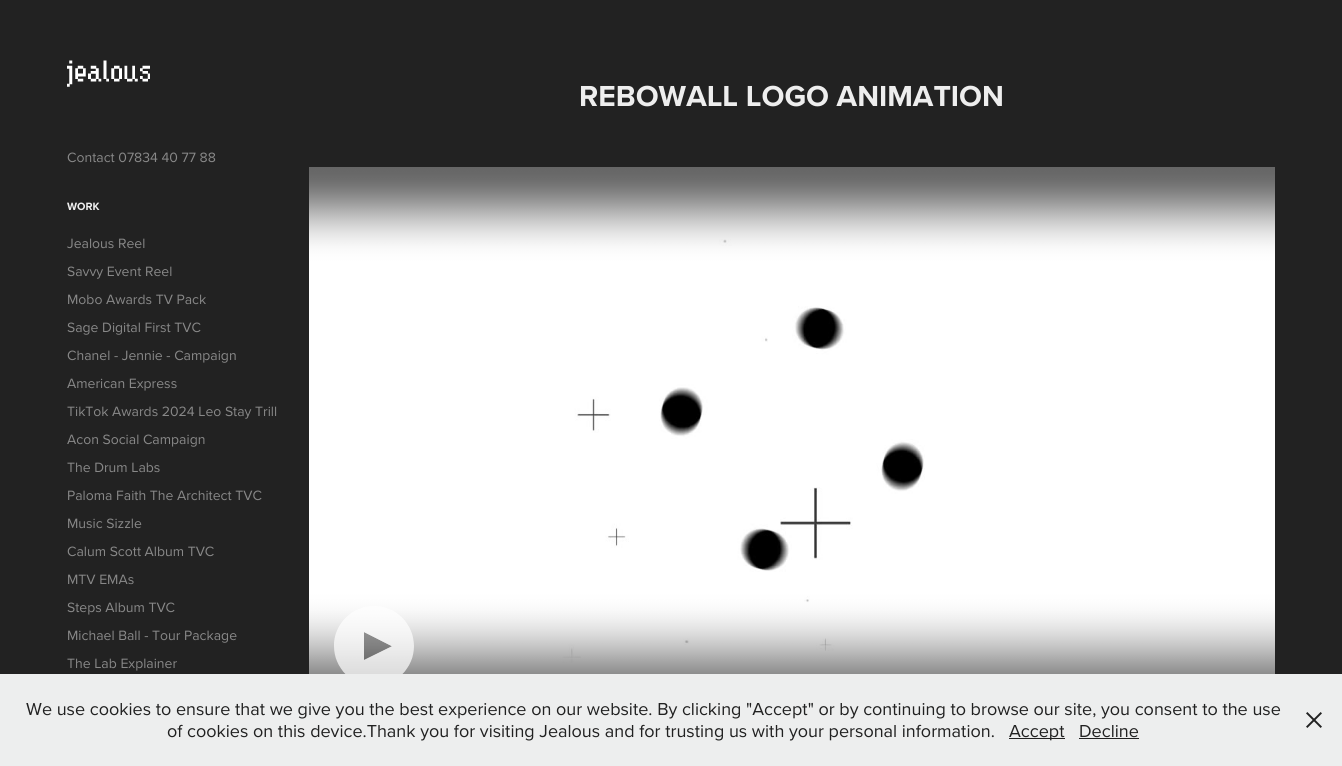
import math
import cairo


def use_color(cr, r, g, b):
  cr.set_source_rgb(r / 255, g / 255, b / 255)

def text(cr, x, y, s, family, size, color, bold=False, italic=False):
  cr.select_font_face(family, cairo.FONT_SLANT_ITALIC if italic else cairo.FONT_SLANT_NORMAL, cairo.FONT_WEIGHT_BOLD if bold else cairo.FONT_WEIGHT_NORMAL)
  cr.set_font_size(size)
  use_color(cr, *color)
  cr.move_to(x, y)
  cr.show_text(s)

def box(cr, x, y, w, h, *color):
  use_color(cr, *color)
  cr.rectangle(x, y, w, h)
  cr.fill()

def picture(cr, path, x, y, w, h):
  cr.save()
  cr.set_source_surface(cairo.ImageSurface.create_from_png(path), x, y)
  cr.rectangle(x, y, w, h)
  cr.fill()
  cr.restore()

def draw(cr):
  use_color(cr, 34, 34, 34)
  cr.paint()
  picture(cr, "img_01.png", 309, 167, 966, 507)
  picture(cr, "img_02.png", 67, 60, 83, 27)
  box(cr, 0, 674, 1342, 92, 237, 238, 238)
  box(cr, 1009, 738, 56, 1, 33, 33, 33)
  box(cr, 1079, 738, 60, 1, 33, 33, 33)
  picture(cr, "img_03.png", 1306, 712, 16, 16)
  text(cr, 579, 106, "REBOWALL LOGO ANIMATION", "Proxima Nova", 30, (238, 238, 238), bold=True)
  text(cr, 67, 162, "Contact 07834 40 77 88", "Proxima Nova", 14, (136, 136, 136))
  text(cr, 67, 210, "WORK", "Proxima Nova", 11, (238, 238, 238), bold=True)
  text(cr, 67, 248, "Jealous Reel", "Proxima Nova", 14, (136, 136, 136))
  text(cr, 67, 276, "Savvy Event Reel", "Proxima Nova", 14, (136, 136, 136))
  text(cr, 67, 304, "Mobo Awards TV Pack", "Proxima Nova", 14, (136, 136, 136))
  text(cr, 67, 332, "Sage Digital First TVC", "Proxima Nova", 14, (136, 136, 136))
  text(cr, 67, 360, "Chanel - Jennie - Campaign", "Proxima Nova", 14, (136, 136, 136))
  text(cr, 67, 388, "American Express", "Proxima Nova", 14, (136, 136, 136))
  text(cr, 67, 416, "TikTok Awards 2024 Leo Stay Trill", "Proxima Nova", 14, (136, 136, 136))
  text(cr, 67, 444, "Acon Social Campaign", "Proxima Nova", 14, (136, 136, 136))
  text(cr, 67, 472, "The Drum Labs", "Proxima Nova", 14, (136, 136, 136))
  text(cr, 67, 500, "Paloma Faith The Architect TVC", "Proxima Nova", 14, (136, 136, 136))
  text(cr, 67, 528, "Music Sizzle", "Proxima Nova", 14, (136, 136, 136))
  text(cr, 67, 556, "Calum Scott Album TVC", "Proxima Nova", 14, (136, 136, 136))
  text(cr, 67, 584, "MTV EMAs", "Proxima Nova", 14, (136, 136, 136))
  text(cr, 67, 612, "Steps Album TVC", "Proxima Nova", 14, (136, 136, 136))
  text(cr, 67, 640, "Michael Ball - Tour Package", "Proxima Nova", 14, (136, 136, 136))
  text(cr, 67, 668, "The Lab Explainer", "Proxima Nova", 14, (136, 136, 136))
  text(cr, 26, 715, "We use cookies to ensure that we give you the best experience on our website. By clicking \"Accept\" or by continuing to browse our site, you consent to the use", "Proxima Nova", 18, (33, 33, 33))
  text(cr, 167, 737, "of cookies on this device.Thank you for visiting Jealous and for trusting us with your personal information.", "Proxima Nova", 18, (33, 33, 33))
  text(cr, 1009, 737, "Accept", "Proxima Nova", 18, (33, 33, 33))
  text(cr, 1079, 737, "Decline", "Proxima Nova", 18, (33, 33, 33))


surface = cairo.ImageSurface(cairo.FORMAT_RGB24, 1342, 766)
cr = cairo.Context(surface)
options = cairo.FontOptions()
options.set_hint_metrics(cairo.HINT_METRICS_OFF)
options.set_hint_style(cairo.HINT_STYLE_NONE)
cr.set_font_options(options)
cr.set_miter_limit(4)
draw(cr)
surface.write_to_png("out.png")
